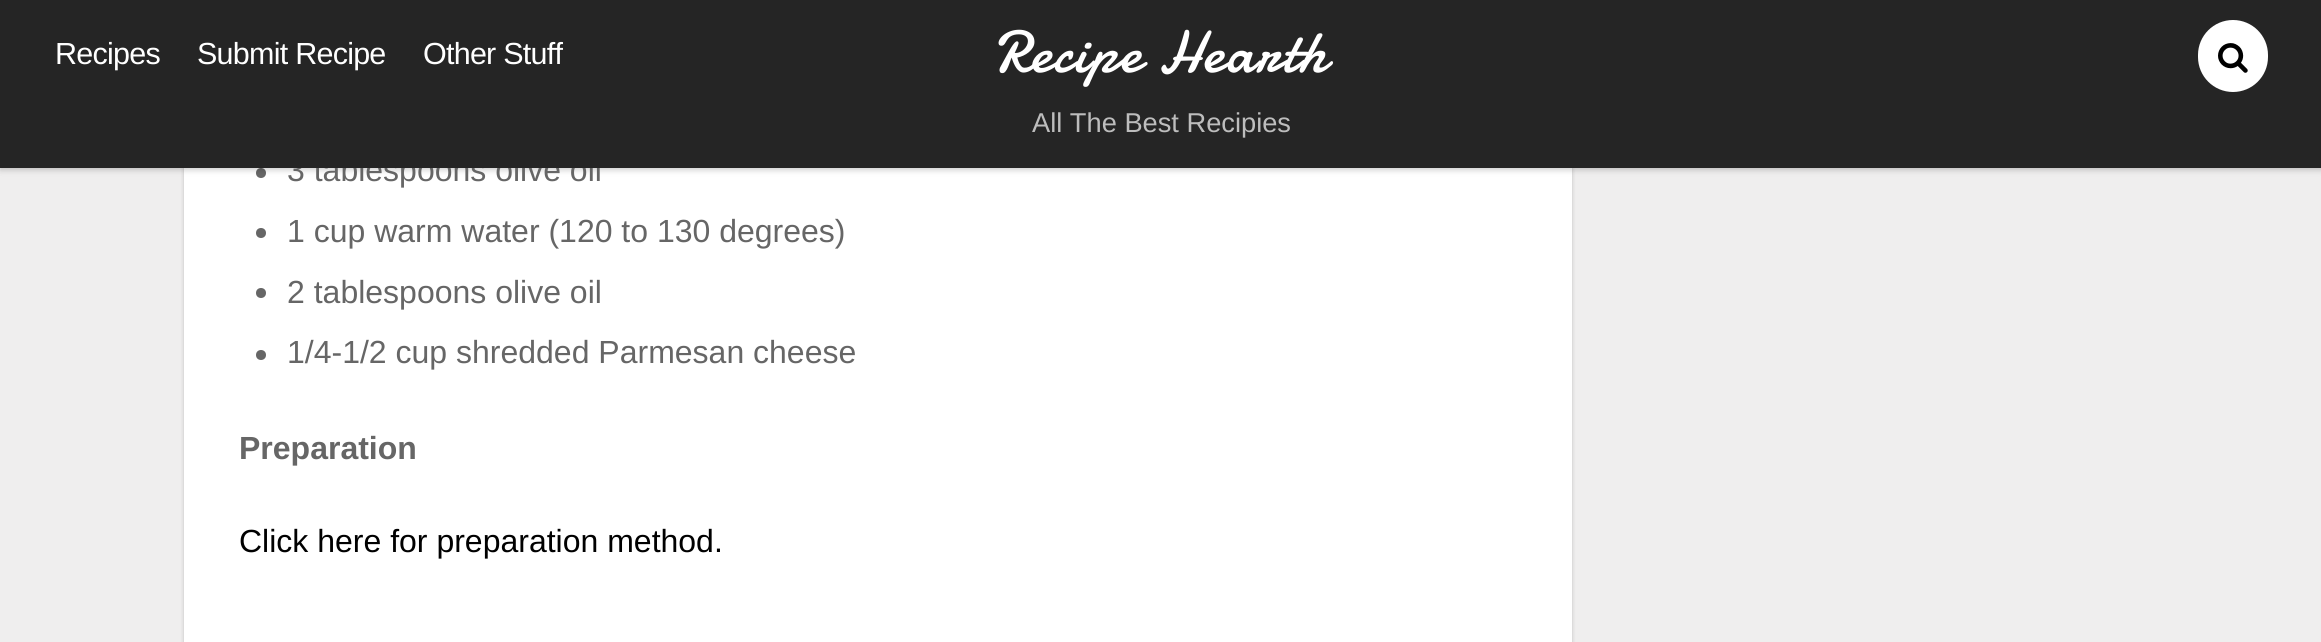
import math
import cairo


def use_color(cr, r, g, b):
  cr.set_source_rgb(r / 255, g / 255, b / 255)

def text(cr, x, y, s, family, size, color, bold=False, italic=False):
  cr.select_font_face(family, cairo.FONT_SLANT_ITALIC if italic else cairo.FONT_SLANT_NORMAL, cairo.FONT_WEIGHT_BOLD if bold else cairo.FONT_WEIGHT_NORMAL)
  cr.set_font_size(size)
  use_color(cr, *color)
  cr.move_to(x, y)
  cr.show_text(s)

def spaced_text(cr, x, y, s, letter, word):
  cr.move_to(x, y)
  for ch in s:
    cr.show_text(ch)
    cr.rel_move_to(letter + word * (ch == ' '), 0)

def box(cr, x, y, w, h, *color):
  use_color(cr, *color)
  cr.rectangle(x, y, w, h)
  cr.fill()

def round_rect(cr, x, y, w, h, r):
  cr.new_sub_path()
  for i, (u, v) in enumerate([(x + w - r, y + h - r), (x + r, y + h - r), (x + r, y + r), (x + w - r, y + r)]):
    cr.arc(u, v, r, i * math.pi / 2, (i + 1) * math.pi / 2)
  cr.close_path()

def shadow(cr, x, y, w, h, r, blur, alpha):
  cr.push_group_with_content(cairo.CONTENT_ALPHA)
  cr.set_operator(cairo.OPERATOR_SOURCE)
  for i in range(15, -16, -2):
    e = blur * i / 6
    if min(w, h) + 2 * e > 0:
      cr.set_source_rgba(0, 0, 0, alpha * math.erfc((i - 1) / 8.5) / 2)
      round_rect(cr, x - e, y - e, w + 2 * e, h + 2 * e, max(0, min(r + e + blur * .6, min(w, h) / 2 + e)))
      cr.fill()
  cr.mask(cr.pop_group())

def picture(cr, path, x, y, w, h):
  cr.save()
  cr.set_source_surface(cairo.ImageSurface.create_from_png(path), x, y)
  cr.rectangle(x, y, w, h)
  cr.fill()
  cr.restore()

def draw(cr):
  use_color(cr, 239, 238, 238)
  cr.paint()
  use_color(cr, 0, 0, 0)
  shadow(cr, 184, -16, 1388, 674, 10, 2, 0.2)
  box(cr, 184, 168, 1388, 474, 255, 255, 255)
  use_color(cr, 102, 102, 102)
  cr.arc(261, 173, 5, 0, 2 * math.pi)
  cr.fill()
  use_color(cr, 0, 0, 0)
  shadow(cr, 0, 2, 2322, 168, 0, 3, 0.2)
  use_color(cr, 102, 102, 102)
  cr.arc(261, 233, 5, 0, 2 * math.pi)
  cr.fill()
  cr.arc(261, 293, 5, 0, 2 * math.pi)
  cr.fill()
  cr.arc(261, 355, 5, 0, 2 * math.pi)
  cr.fill()
  text(cr, 287, 181, "3 tablespoons olive oil", "Liberation Sans", 32, (102, 102, 102))
  box(cr, 0, 0, 2321, 168, 37, 37, 37)
  cr.set_font_size(30.5)
  use_color(cr, 255, 255, 255)
  spaced_text(cr, 423, 64, "Other Stuff", -0.75, 0)
  spaced_text(cr, 197, 64, "Submit Recipe", -0.75, 0)
  spaced_text(cr, 55, 64, "Recipes", -0.75, 0)
  round_rect(cr, 2198, 20, 70, 72, 35)
  cr.fill()
  picture(cr, "img_01.png", 2218, 43, 30, 30)
  text(cr, 1032, 132, "All The Best Recipies", "Liberation Sans", 27.25, (189, 189, 189))
  cr.select_font_face("Damion")
  cr.set_font_size(60)
  use_color(cr, 255, 255, 255)
  spaced_text(cr, 994, 72, "Recipe Hearth", 1.75, 0)
  text(cr, 287, 242, "1 cup warm water (120 to 130 degrees)", "Liberation Sans", 32, (102, 102, 102))
  text(cr, 287, 303, "2 tablespoons olive oil", "Liberation Sans", 32, (102, 102, 102))
  text(cr, 287, 363, "1/4-1/2 cup shredded Parmesan cheese", "Liberation Sans", 32, (102, 102, 102))
  text(cr, 239, 459, "Preparation", "Liberation Sans", 32, (102, 102, 102), bold=True)
  text(cr, 239, 552, "Click here for preparation method.", "Liberation Sans", 32, (0, 0, 0))


surface = cairo.ImageSurface(cairo.FORMAT_RGB24, 2321, 642)
cr = cairo.Context(surface)
options = cairo.FontOptions()
options.set_hint_metrics(cairo.HINT_METRICS_OFF)
options.set_hint_style(cairo.HINT_STYLE_NONE)
cr.set_font_options(options)
cr.set_miter_limit(4)
draw(cr)
surface.write_to_png("out.png")
